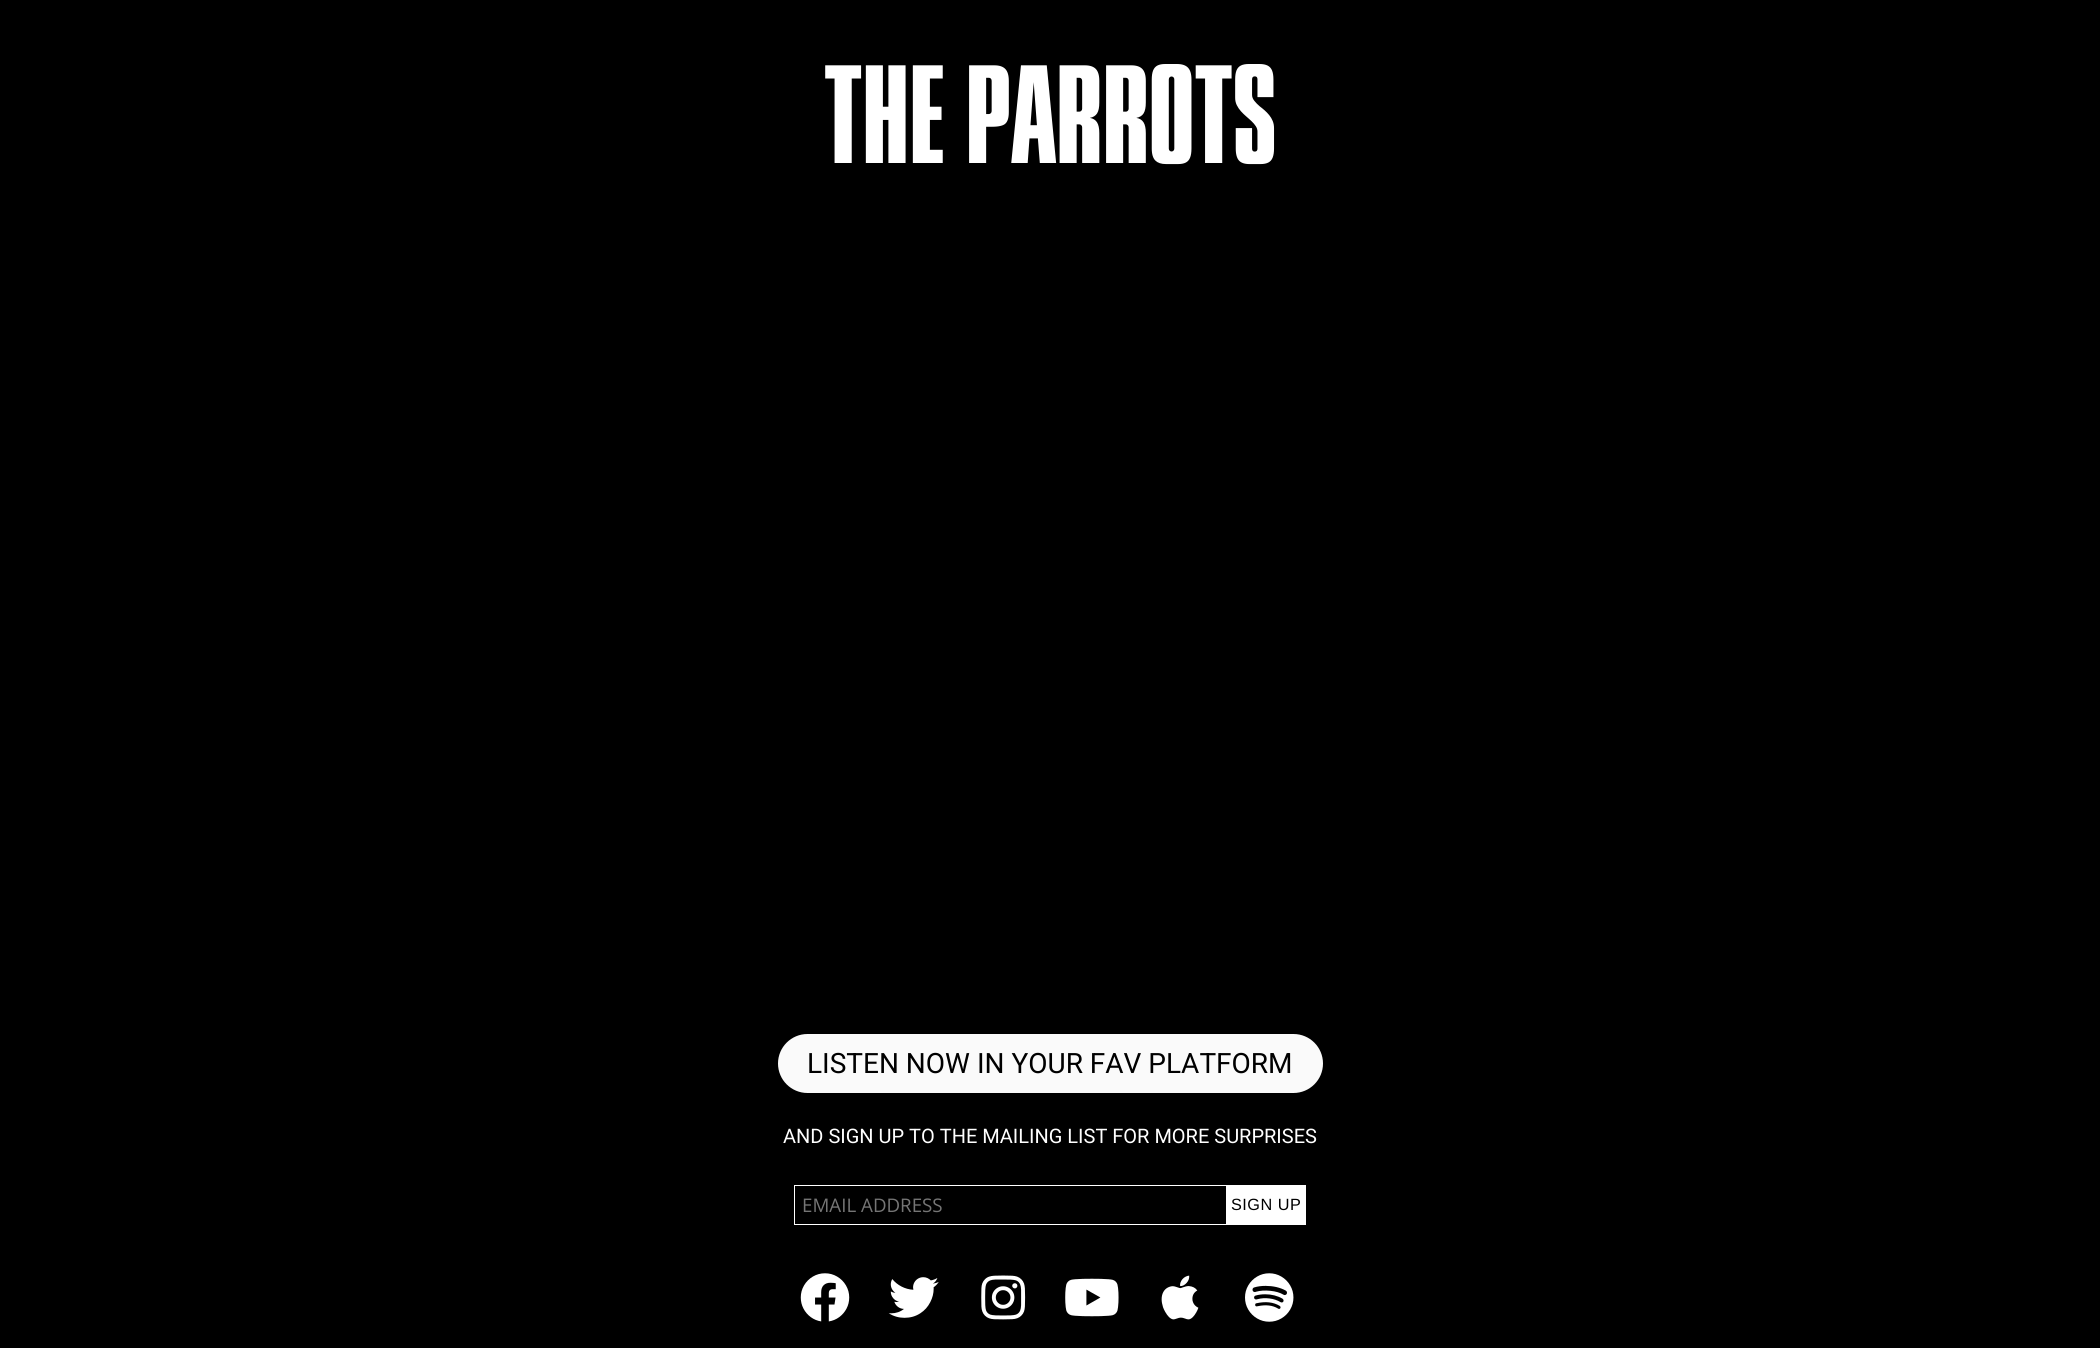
import math
import cairo


def use_color(cr, r, g, b):
  cr.set_source_rgb(r / 255, g / 255, b / 255)

def text(cr, x, y, s, family, size, color, bold=False, italic=False):
  cr.select_font_face(family, cairo.FONT_SLANT_ITALIC if italic else cairo.FONT_SLANT_NORMAL, cairo.FONT_WEIGHT_BOLD if bold else cairo.FONT_WEIGHT_NORMAL)
  cr.set_font_size(size)
  use_color(cr, *color)
  cr.move_to(x, y)
  cr.show_text(s)

def spaced_text(cr, x, y, s, letter, word):
  cr.move_to(x, y)
  for ch in s:
    cr.show_text(ch)
    cr.rel_move_to(letter + word * (ch == ' '), 0)

def box(cr, x, y, w, h, *color):
  use_color(cr, *color)
  cr.rectangle(x, y, w, h)
  cr.fill()

def round_rect(cr, x, y, w, h, r):
  cr.new_sub_path()
  for i, (u, v) in enumerate([(x + w - r, y + h - r), (x + r, y + h - r), (x + r, y + r), (x + w - r, y + r)]):
    cr.arc(u, v, r, i * math.pi / 2, (i + 1) * math.pi / 2)
  cr.close_path()

def picture(cr, path, x, y, w, h):
  cr.save()
  cr.set_source_surface(cairo.ImageSurface.create_from_png(path), x, y)
  cr.rectangle(x, y, w, h)
  cr.fill()
  cr.restore()

def draw(cr):
  use_color(cr, 0, 0, 0)
  cr.paint()
  use_color(cr, 250, 250, 250)
  round_rect(cr, 778, 1034, 545, 59, 29.5)
  cr.fill()
  cr.rectangle(794.5, 1185.5, 436, 39)
  use_color(cr, 255, 255, 255)
  cr.set_line_width(1)
  cr.stroke()
  box(cr, 1226, 1185, 80, 40, 255, 255, 255)
  picture(cr, "img_01.png", 800, 1273, 50, 49)
  picture(cr, "img_02.png", 888, 1277, 51, 41)
  picture(cr, "img_03.png", 981, 1275, 45, 45)
  picture(cr, "img_04.png", 1065, 1278, 54, 39)
  picture(cr, "img_05.png", 1161, 1275, 38, 45)
  picture(cr, "img_06.png", 1245, 1273, 49, 49)
  text(cr, 824, 163, "THE PARROTS", "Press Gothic", 120, (255, 255, 255))
  text(cr, 807, 1073, "LISTEN NOW IN YOUR FAV PLATFORM", "Roboto", 28, (0, 0, 0))
  text(cr, 783, 1143, "AND SIGN UP TO THE MAILING LIST FOR MORE SURPRISES", "Roboto", 20, (255, 255, 255))
  text(cr, 802, 1212, "EMAIL ADDRESS", "Open Sans", 18.75, (117, 117, 117))
  cr.select_font_face("Liberation Sans")
  cr.set_font_size(16.25)
  use_color(cr, 0, 0, 0)
  spaced_text(cr, 1231, 1210, "SIGN UP", 0.5, 0)


surface = cairo.ImageSurface(cairo.FORMAT_RGB24, 2100, 1348)
cr = cairo.Context(surface)
options = cairo.FontOptions()
options.set_hint_metrics(cairo.HINT_METRICS_OFF)
options.set_hint_style(cairo.HINT_STYLE_NONE)
cr.set_font_options(options)
cr.set_miter_limit(4)
draw(cr)
surface.write_to_png("out.png")
